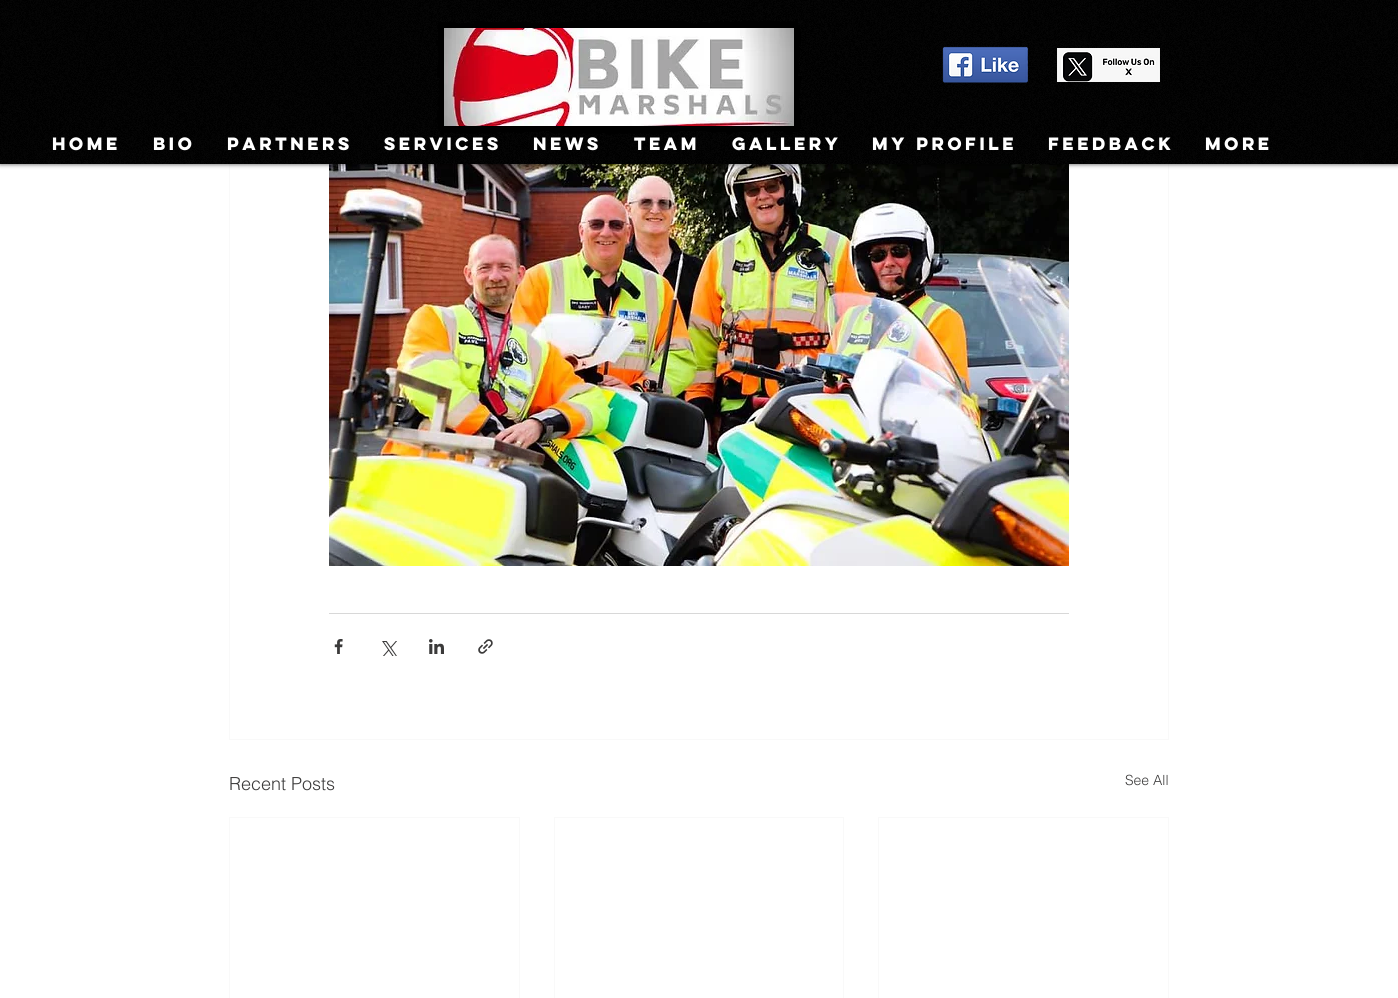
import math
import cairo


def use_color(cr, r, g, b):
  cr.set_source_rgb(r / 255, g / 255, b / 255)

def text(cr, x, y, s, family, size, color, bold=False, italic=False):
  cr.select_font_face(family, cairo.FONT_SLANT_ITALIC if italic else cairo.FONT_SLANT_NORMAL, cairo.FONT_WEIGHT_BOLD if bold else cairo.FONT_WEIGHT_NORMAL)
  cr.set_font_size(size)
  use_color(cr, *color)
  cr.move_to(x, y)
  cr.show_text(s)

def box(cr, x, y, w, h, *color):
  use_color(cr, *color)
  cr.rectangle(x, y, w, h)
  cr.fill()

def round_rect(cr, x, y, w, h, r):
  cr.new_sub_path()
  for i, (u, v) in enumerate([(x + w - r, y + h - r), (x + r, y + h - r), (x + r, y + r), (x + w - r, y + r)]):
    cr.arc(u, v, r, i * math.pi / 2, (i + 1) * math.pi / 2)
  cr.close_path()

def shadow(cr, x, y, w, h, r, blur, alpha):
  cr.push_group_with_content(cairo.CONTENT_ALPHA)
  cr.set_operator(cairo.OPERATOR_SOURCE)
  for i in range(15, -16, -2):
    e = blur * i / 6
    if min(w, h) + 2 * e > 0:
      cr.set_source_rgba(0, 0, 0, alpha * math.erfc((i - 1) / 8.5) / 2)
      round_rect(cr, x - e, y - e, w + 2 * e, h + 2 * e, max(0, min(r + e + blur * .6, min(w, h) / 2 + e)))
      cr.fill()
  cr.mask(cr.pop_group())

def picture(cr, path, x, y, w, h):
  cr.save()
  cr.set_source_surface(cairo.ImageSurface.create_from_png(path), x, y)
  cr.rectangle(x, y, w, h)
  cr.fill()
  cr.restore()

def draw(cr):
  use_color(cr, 255, 255, 255)
  cr.paint()
  cr.rectangle(229.5, -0.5, 939, 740)
  use_color(cr, 249, 249, 249)
  cr.set_line_width(1)
  cr.stroke()
  picture(cr, "img_07.png", 329, 164, 740, 402)
  use_color(cr, 0, 0, 0)
  shadow(cr, 0, 0, 1398, 164, 0, 2.5, 0.7)
  box(cr, 0, 0, 1398, 164, 0, 0, 0)
  picture(cr, "img_01.png", 0, 0, 1398, 164)
  picture(cr, "img_04.png", 441, 25, 361, 110)
  picture(cr, "img_02.png", 436, 19, 362, 111)
  picture(cr, "img_03.png", 444, 28, 350, 98)
  picture(cr, "img_05.png", 942, 46, 86, 37)
  picture(cr, "img_06.png", 1057, 48, 103, 34)
  box(cr, 329, 613, 740, 1, 216, 216, 216)
  picture(cr, "img_08.png", 334, 639, 9, 15)
  picture(cr, "img_09.png", 382, 641, 15, 15)
  picture(cr, "img_10.png", 429, 639, 15, 15)
  picture(cr, "img_11.png", 478, 639, 15, 15)
  cr.rectangle(229.5, 817.5, 290, 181)
  use_color(cr, 249, 249, 249)
  cr.stroke()
  cr.rectangle(554.5, 817.5, 289, 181)
  cr.stroke()
  cr.rectangle(878.5, 817.5, 290, 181)
  cr.stroke()
  text(cr, 52, 150, "Home", "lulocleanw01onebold", 16, (255, 255, 255), bold=True)
  text(cr, 153, 150, "Bio", "lulocleanw01onebold", 16, (255, 255, 255), bold=True)
  text(cr, 227, 150, "Partners", "lulocleanw01onebold", 16, (255, 255, 255), bold=True)
  text(cr, 384, 150, "Services", "lulocleanw01onebold", 16, (255, 255, 255), bold=True)
  text(cr, 533, 150, "News", "lulocleanw01onebold", 16, (255, 255, 255), bold=True)
  text(cr, 634, 150, "Team", "lulocleanw01onebold", 16, (255, 255, 255), bold=True)
  text(cr, 732, 150, "Gallery", "lulocleanw01onebold", 16, (255, 255, 255), bold=True)
  text(cr, 872, 150, "My Profile", "lulocleanw01onebold", 16, (255, 255, 255), bold=True)
  text(cr, 1048, 150, "Feedback", "lulocleanw01onebold", 16, (255, 255, 255), bold=True)
  text(cr, 1205, 150, "More", "lulocleanw01onebold", 16, (255, 255, 255), bold=True)
  text(cr, 229, 790, "Recent Posts", "helvetica Light", 18, (59, 58, 58))
  text(cr, 1125, 785, "See All", "helvetica Light", 14, (59, 58, 58))


surface = cairo.ImageSurface(cairo.FORMAT_RGB24, 1398, 998)
cr = cairo.Context(surface)
options = cairo.FontOptions()
options.set_hint_metrics(cairo.HINT_METRICS_OFF)
options.set_hint_style(cairo.HINT_STYLE_NONE)
cr.set_font_options(options)
cr.set_miter_limit(4)
draw(cr)
surface.write_to_png("out.png")
